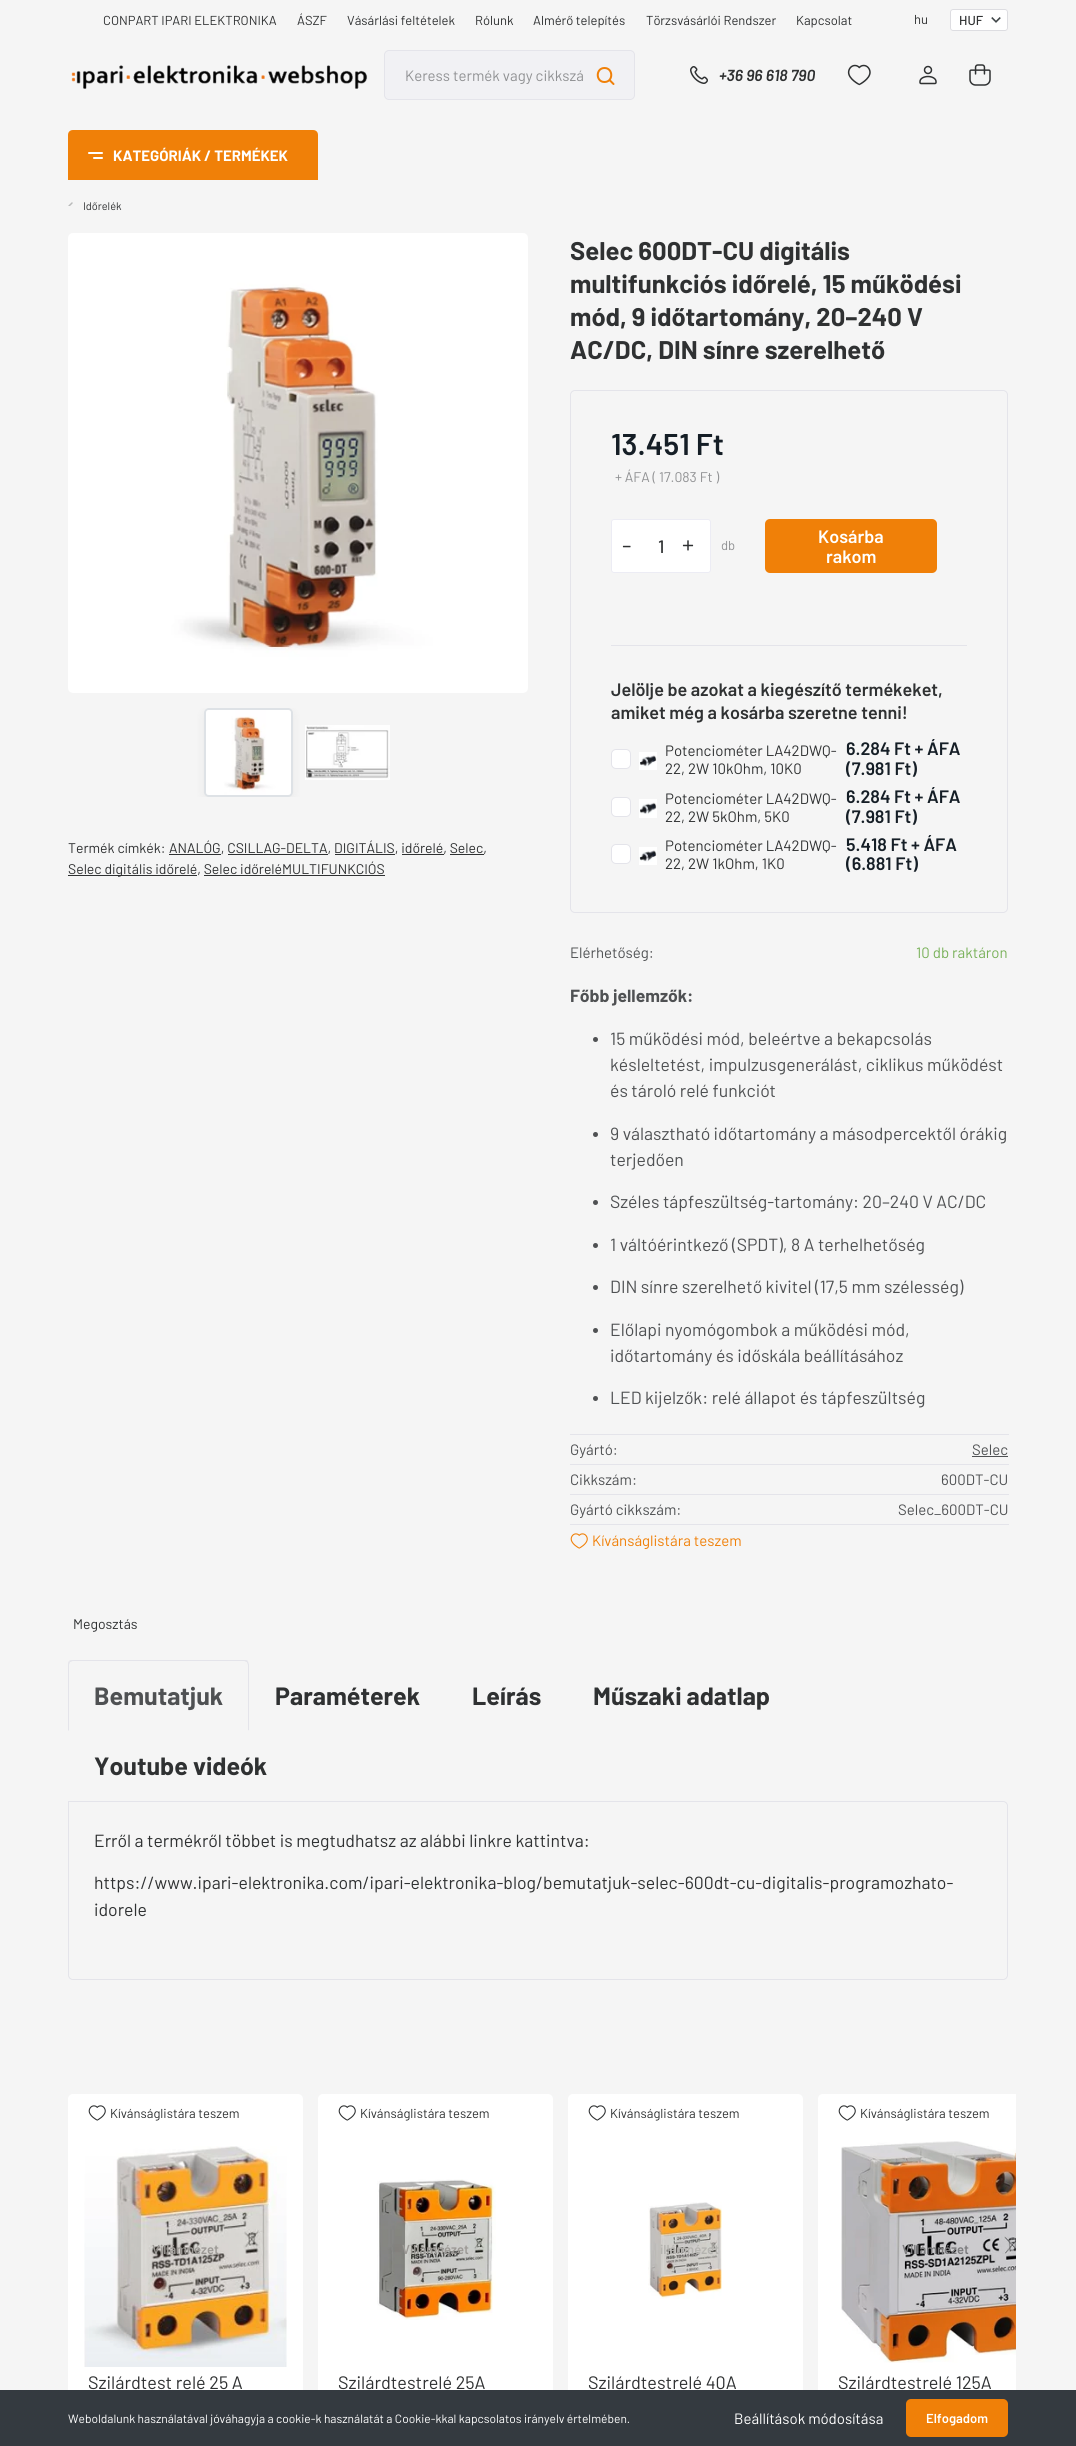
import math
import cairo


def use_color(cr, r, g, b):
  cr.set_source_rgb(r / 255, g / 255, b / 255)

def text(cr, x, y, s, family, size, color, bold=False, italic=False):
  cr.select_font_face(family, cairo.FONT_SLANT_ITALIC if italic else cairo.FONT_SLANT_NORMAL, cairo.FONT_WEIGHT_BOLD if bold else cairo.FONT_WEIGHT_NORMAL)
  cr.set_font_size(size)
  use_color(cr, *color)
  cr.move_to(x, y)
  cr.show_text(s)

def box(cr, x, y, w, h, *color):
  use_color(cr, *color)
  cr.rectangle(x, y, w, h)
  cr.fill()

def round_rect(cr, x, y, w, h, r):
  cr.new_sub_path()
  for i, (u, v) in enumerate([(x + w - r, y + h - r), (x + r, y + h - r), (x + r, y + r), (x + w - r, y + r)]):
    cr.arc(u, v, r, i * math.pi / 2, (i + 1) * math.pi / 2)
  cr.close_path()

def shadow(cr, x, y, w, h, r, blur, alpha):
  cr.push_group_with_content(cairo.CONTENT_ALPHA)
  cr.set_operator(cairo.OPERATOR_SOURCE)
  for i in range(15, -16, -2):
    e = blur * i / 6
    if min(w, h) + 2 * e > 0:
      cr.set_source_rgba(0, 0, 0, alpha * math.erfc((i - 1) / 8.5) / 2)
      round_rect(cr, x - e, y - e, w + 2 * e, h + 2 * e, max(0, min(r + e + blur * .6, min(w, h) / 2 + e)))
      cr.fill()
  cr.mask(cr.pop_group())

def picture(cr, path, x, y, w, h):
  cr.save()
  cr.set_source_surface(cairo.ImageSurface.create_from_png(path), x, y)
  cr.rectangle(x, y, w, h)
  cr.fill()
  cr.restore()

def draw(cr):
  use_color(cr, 245, 245, 245)
  cr.paint()
  use_color(cr, 255, 255, 255)
  round_rect(cr, 950, 9, 58, 22, 3)
  cr.fill()
  picture(cr, "img_01.png", 991, 17, 10, 6)
  round_rect(cr, 950.5, 9.5, 57, 21, 2.5)
  use_color(cr, 221, 221, 225)
  cr.set_line_width(1)
  cr.stroke()
  picture(cr, "img_02.png", 71, 65, 297, 24)
  use_color(cr, 241, 241, 244)
  round_rect(cr, 384.5, 50.5, 250, 49, 4.5)
  cr.fill_preserve()
  use_color(cr, 228, 228, 234)
  cr.stroke()
  cr.new_path()
  cr.move_to(613.5, 84)
  cr.line_to(609.5, 80)
  cr.move_to(604.5, 82)
  cr.curve_to(595.5, 82, 595.5, 68, 604.5, 68)
  cr.curve_to(613.5, 68, 613.5, 82, 604.5, 82)
  cr.close_path()
  use_color(cr, 240, 128, 8)
  cr.set_line_width(2)
  cr.set_line_cap(cairo.LINE_CAP_ROUND)
  cr.set_line_join(cairo.LINE_JOIN_ROUND)
  cr.stroke()
  picture(cr, "img_03.png", 690, 66, 18, 18)
  picture(cr, "img_04.png", 847, 64, 24, 22)
  picture(cr, "img_05.png", 919, 65, 18, 20)
  picture(cr, "img_06.png", 969, 64, 22, 22)
  cr.new_path()
  cr.move_to(73, 130)
  cr.line_to(313, 130)
  cr.curve_to(316, 130, 318, 132, 318, 135)
  cr.line_to(318, 180)
  cr.line_to(68, 180)
  cr.line_to(68, 135)
  cr.curve_to(68, 132, 70, 130, 73, 130)
  cr.close_path()
  cr.fill()
  use_color(cr, 255, 255, 255)
  round_rect(cr, 88, 152, 15, 2, 1)
  cr.fill()
  round_rect(cr, 93, 157, 10, 2, 1)
  cr.fill()
  picture(cr, "img_07.png", 68, 202, 5, 4)
  picture(cr, "img_08.png", 68, 233, 460, 460)
  cr.save()
  cr.rectangle(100, 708, 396, 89)
  cr.clip()
  use_color(cr, 0, 0, 0)
  shadow(cr, 204, 711, 89, 89, 5, 5, 0.05)
  cr.restore()
  round_rect(cr, 205, 709, 87, 87, 4)
  use_color(cr, 222, 226, 230)
  cr.set_line_cap(cairo.LINE_CAP_BUTT)
  cr.set_line_join(cairo.LINE_JOIN_MITER)
  cr.stroke()
  picture(cr, "img_09.png", 206, 710, 85, 85)
  picture(cr, "img_10.png", 305, 725, 85, 55)
  box(cr, 169, 854, 52, 1, 47, 49, 50)
  box(cr, 228, 854, 100, 1, 47, 49, 50)
  box(cr, 335, 854, 60, 1, 47, 49, 50)
  box(cr, 402, 854, 42, 1, 47, 49, 50)
  box(cr, 450, 854, 34, 1, 47, 49, 50)
  box(cr, 68, 875, 129, 1, 47, 49, 50)
  box(cr, 204, 875, 181, 1, 47, 49, 50)
  round_rect(cr, 570.5, 390.5, 437, 522, 4.5)
  use_color(cr, 228, 228, 234)
  cr.set_line_width(1)
  cr.stroke()
  use_color(cr, 255, 255, 255)
  round_rect(cr, 611.5, 519.5, 99, 53, 2.5)
  cr.fill_preserve()
  use_color(cr, 236, 236, 244)
  cr.stroke()
  use_color(cr, 240, 128, 8)
  round_rect(cr, 765, 519, 172, 54, 5)
  cr.fill()
  box(cr, 611, 645, 356, 1, 228, 228, 234)
  use_color(cr, 255, 255, 255)
  round_rect(cr, 611.5, 749.5, 19, 19, 4.5)
  cr.fill_preserve()
  use_color(cr, 228, 228, 234)
  cr.stroke()
  picture(cr, "img_11.png", 639, 752, 18, 18)
  use_color(cr, 255, 255, 255)
  round_rect(cr, 611.5, 797.5, 19, 19, 4.5)
  cr.fill_preserve()
  use_color(cr, 228, 228, 234)
  cr.stroke()
  picture(cr, "img_12.png", 639, 799, 18, 19)
  use_color(cr, 255, 255, 255)
  round_rect(cr, 611.5, 844.5, 19, 19, 4.5)
  cr.fill_preserve()
  use_color(cr, 228, 228, 234)
  cr.stroke()
  picture(cr, "img_13.png", 639, 847, 18, 18)
  use_color(cr, 79, 81, 83)
  cr.arc(595.5, 1039.5, 2.5, 0, 2 * math.pi)
  cr.fill()
  cr.arc(595.5, 1134.5, 2.5, 0, 2 * math.pi)
  cr.fill()
  cr.arc(595.5, 1202.5, 2.5, 0, 2 * math.pi)
  cr.fill()
  cr.arc(595.5, 1245.5, 2.5, 0, 2 * math.pi)
  cr.fill()
  cr.arc(595.5, 1287.5, 2.5, 0, 2 * math.pi)
  cr.fill()
  cr.arc(595.5, 1330.5, 2.5, 0, 2 * math.pi)
  cr.fill()
  cr.arc(595.5, 1398.5, 2.5, 0, 2 * math.pi)
  cr.fill()
  box(cr, 570, 1434, 439, 1, 228, 228, 234)
  box(cr, 972, 1456, 36, 1, 79, 81, 83)
  box(cr, 570, 1464, 439, 1, 228, 228, 234)
  box(cr, 570, 1494, 439, 1, 228, 228, 234)
  box(cr, 570, 1524, 439, 1, 228, 228, 234)
  picture(cr, "img_14.png", 570, 1533, 18, 16)
  cr.new_path()
  cr.move_to(73, 1660)
  cr.curve_to(72, 1660, 70, 1660, 69, 1661)
  cr.line_to(70, 1662)
  cr.curve_to(71, 1662, 72, 1661, 73, 1661)
  cr.line_to(244, 1661)
  cr.curve_to(245, 1661, 246, 1662, 247, 1662)
  cr.line_to(248, 1661)
  cr.curve_to(247, 1660, 246, 1660, 244, 1660)
  cr.close_path()
  cr.fill()
  cr.new_path()
  cr.move_to(249, 1731)
  cr.line_to(249, 1665)
  cr.curve_to(249, 1664, 248, 1662, 248, 1661)
  cr.line_to(247, 1662)
  cr.line_to(248, 1665)
  cr.line_to(248, 1730)
  cr.close_path()
  cr.fill()
  use_color(cr, 245, 245, 245)
  cr.new_path()
  cr.move_to(249, 1731)
  cr.line_to(248, 1730)
  cr.line_to(69, 1730)
  cr.line_to(68, 1731)
  cr.close_path()
  cr.fill()
  use_color(cr, 228, 228, 234)
  cr.new_path()
  cr.move_to(68, 1731)
  cr.line_to(69, 1730)
  cr.line_to(69, 1665)
  cr.line_to(70, 1662)
  cr.line_to(69, 1661)
  cr.curve_to(68, 1662, 68, 1664, 68, 1665)
  cr.close_path()
  cr.fill()
  cr.new_path()
  cr.move_to(68.5, 1801.5)
  cr.line_to(1003, 1801.5)
  cr.curve_to(1005.5, 1801.5, 1007.5, 1803.5, 1007.5, 1806)
  cr.line_to(1007.5, 1975)
  cr.curve_to(1007.5, 1977.5, 1005.5, 1979.5, 1003, 1979.5)
  cr.line_to(73, 1979.5)
  cr.curve_to(70.5, 1979.5, 68.5, 1977.5, 68.5, 1975)
  cr.close_path()
  cr.stroke()
  use_color(cr, 255, 255, 255)
  round_rect(cr, 68, 2094, 235, 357, 5)
  cr.fill()
  picture(cr, "img_15.png", 88, 2105, 18, 16)
  picture(cr, "img_16.png", 84, 2146, 203, 221)
  round_rect(cr, 318, 2094, 235, 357, 5)
  cr.fill()
  picture(cr, "img_15.png", 338, 2105, 18, 16)
  picture(cr, "img_17.png", 377, 2179, 119, 141)
  round_rect(cr, 568, 2094, 235, 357, 5)
  cr.fill()
  picture(cr, "img_15.png", 588, 2105, 18, 16)
  picture(cr, "img_18.png", 648, 2202, 74, 97)
  cr.new_path()
  cr.move_to(823, 2094)
  cr.line_to(1016, 2094)
  cr.line_to(1016, 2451)
  cr.line_to(823, 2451)
  cr.curve_to(820, 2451, 818, 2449, 818, 2446)
  cr.line_to(818, 2099)
  cr.curve_to(818, 2096, 820, 2094, 823, 2094)
  cr.close_path()
  cr.fill()
  picture(cr, "img_15.png", 838, 2105, 18, 16)
  picture(cr, "img_19.png", 841, 2141, 175, 222)
  box(cr, 0, 2390, 1076, 56, 52, 58, 64)
  use_color(cr, 240, 128, 8)
  round_rect(cr, 906, 2399, 102, 38, 5)
  cr.fill()
  text(cr, 103, 25, "CONPART IPARI ELEKTRONIKA", "Barlow", 13, (47, 49, 50))
  text(cr, 297, 25, "ÁSZF", "Barlow", 13, (47, 49, 50))
  text(cr, 347, 25, "Vásárlási feltételek", "Barlow", 13, (47, 49, 50))
  text(cr, 475, 25, "Rólunk", "Barlow", 13, (47, 49, 50))
  text(cr, 533, 25, "Almérő telepítés", "Barlow", 13, (47, 49, 50))
  text(cr, 646, 25, "Törzsvásárlói Rendszer", "Barlow", 13, (47, 49, 50))
  text(cr, 796, 25, "Kapcsolat", "Barlow", 13, (47, 49, 50))
  text(cr, 914, 24, "hu", "Barlow", 13, (47, 49, 50))
  text(cr, 959, 25, "HUF", "Barlow Medium", 13, (47, 49, 50))
  text(cr, 405, 81, "Keress termék vagy cikkszá", "Barlow", 15, (144, 145, 147))
  text(cr, 719, 81, "+36 96 618 790", "Barlow SemiBold", 16, (47, 49, 50), italic=True)
  text(cr, 113, 161, "KATEGÓRIÁK / TERMÉKEK", "Barlow", 15, (255, 255, 255), bold=True)
  text(cr, 83, 210, "Időrelék", "Barlow", 11, (47, 49, 50))
  text(cr, 68, 853, "Termék címkék:", "Barlow", 14, (47, 49, 50))
  text(cr, 169, 853, "ANALÓG, CSILLAG-DELTA, DIGITÁLIS, időrelé, Selec,", "Barlow", 14, (47, 49, 50))
  text(cr, 68, 874, "Selec digitális időrelé, Selec időreléMULTIFUNKCIÓS", "Barlow", 14, (47, 49, 50))
  text(cr, 570, 260, "Selec 600DT-CU digitális", "Barlow", 25.6, (47, 49, 50), bold=True)
  text(cr, 570, 293, "multifunkciós időrelé, 15 működési", "Barlow", 25.6, (47, 49, 50), bold=True)
  text(cr, 570, 326, "mód, 9 időtartomány, 20–240 V", "Barlow", 25.6, (47, 49, 50), bold=True)
  text(cr, 570, 359, "AC/DC, DIN sínre szerelhető", "Barlow", 25.6, (47, 49, 50), bold=True)
  text(cr, 611, 455, "13.451 Ft", "Barlow SemiBold", 30, (21, 30, 38))
  text(cr, 615, 482, "+ ÁFA ( 17.083 Ft )", "Barlow", 14, (144, 145, 147))
  text(cr, 622, 554, "-", "Barlow", 24, (47, 49, 50))
  text(cr, 658, 553, "1", "Barlow Medium", 18, (47, 49, 50))
  text(cr, 682, 553, "+", "Barlow", 24, (47, 49, 50))
  text(cr, 721, 550, "db", "Barlow", 13, (144, 145, 147))
  text(cr, 818, 543, "Kosárba", "Barlow SemiBold", 18, (255, 255, 255))
  text(cr, 826, 563, "rakom", "Barlow SemiBold", 18, (255, 255, 255))
  text(cr, 611, 696, "Jelölje be azokat a kiegészítő termékeket,", "Barlow SemiBold", 18, (47, 49, 50))
  text(cr, 611, 719, "amiket még a kosárba szeretne tenni!", "Barlow SemiBold", 18, (47, 49, 50))
  text(cr, 665, 756, "Potenciométer LA42DWQ-", "Barlow", 15, (47, 49, 50))
  text(cr, 665, 774, "22, 2W 10kOhm, 10K0", "Barlow", 15, (47, 49, 50))
  text(cr, 846, 755, "6.284 Ft + ÁFA", "Barlow SemiBold", 18, (21, 30, 38))
  text(cr, 846, 775, "(7.981 Ft)", "Barlow SemiBold", 18, (21, 30, 38))
  text(cr, 665, 804, "Potenciométer LA42DWQ-", "Barlow", 15, (47, 49, 50))
  text(cr, 665, 822, "22, 2W 5kOhm, 5K0", "Barlow", 15, (47, 49, 50))
  text(cr, 846, 803, "6.284 Ft + ÁFA", "Barlow SemiBold", 18, (21, 30, 38))
  text(cr, 846, 823, "(7.981 Ft)", "Barlow SemiBold", 18, (21, 30, 38))
  text(cr, 665, 851, "Potenciométer LA42DWQ-", "Barlow", 15, (47, 49, 50))
  text(cr, 665, 869, "22, 2W 1kOhm, 1K0", "Barlow", 15, (47, 49, 50))
  text(cr, 846, 851, "5.418 Ft + ÁFA", "Barlow SemiBold", 18, (21, 30, 38))
  text(cr, 846, 870, "(6.881 Ft)", "Barlow SemiBold", 18, (21, 30, 38))
  text(cr, 570, 958, "Elérhetőség:", "Barlow", 15, (79, 81, 83))
  text(cr, 916, 958, "10 db raktáron", "Barlow", 15, (121, 177, 90))
  text(cr, 570, 1002, "Főbb jellemzők:", "Barlow", 17.6, (79, 81, 83), bold=True)
  text(cr, 610, 1045, "15 működési mód, beleértve a bekapcsolás", "Barlow", 17.6, (79, 81, 83))
  text(cr, 610, 1071, "késleltetést, impulzusgenerálást, ciklikus működést", "Barlow", 17.6, (79, 81, 83))
  text(cr, 610, 1097, "és tároló relé funkciót", "Barlow", 17.6, (79, 81, 83))
  text(cr, 610, 1140, "9 választható időtartomány a másodpercektől órákig", "Barlow", 17.6, (79, 81, 83))
  text(cr, 610, 1166, "terjedően", "Barlow", 17.6, (79, 81, 83))
  text(cr, 610, 1208, "Széles tápfeszültség-tartomány: 20–240 V AC/DC", "Barlow", 17.6, (79, 81, 83))
  text(cr, 610, 1251, "1 váltóérintkező (SPDT), 8 A terhelhetőség", "Barlow", 17.6, (79, 81, 83))
  text(cr, 610, 1293, "DIN sínre szerelhető kivitel (17,5 mm szélesség)", "Barlow", 17.6, (79, 81, 83))
  text(cr, 610, 1336, "Előlapi nyomógombok a működési mód,", "Barlow", 17.6, (79, 81, 83))
  text(cr, 610, 1362, "időtartomány és időskála beállításához", "Barlow", 17.6, (79, 81, 83))
  text(cr, 610, 1404, "LED kijelzők: relé állapot és tápfeszültség", "Barlow", 17.6, (79, 81, 83))
  text(cr, 570, 1455, "Gyártó:", "Barlow", 15, (79, 81, 83))
  text(cr, 972, 1455, "Selec", "Barlow", 15, (79, 81, 83))
  text(cr, 570, 1485, "Cikkszám:", "Barlow", 15, (79, 81, 83))
  text(cr, 941, 1485, "600DT-CU", "Barlow", 15, (79, 81, 83))
  text(cr, 570, 1515, "Gyártó cikkszám:", "Barlow", 15, (79, 81, 83))
  text(cr, 898, 1515, "Selec_600DT-CU", "Barlow", 15, (79, 81, 83))
  text(cr, 592, 1546, "Kívánságlistára teszem", "Barlow", 15, (240, 128, 8))
  text(cr, 73, 1629, "Megosztás", "Barlow", 14, (47, 49, 50))
  text(cr, 94, 1705, "Bemutatjuk", "Barlow", 25, (79, 81, 83), bold=True)
  text(cr, 275, 1705, "Paraméterek", "Barlow", 25, (47, 49, 50), bold=True)
  text(cr, 472, 1705, "Leírás", "Barlow", 25, (47, 49, 50), bold=True)
  text(cr, 593, 1705, "Műszaki adatlap", "Barlow", 25, (47, 49, 50), bold=True)
  text(cr, 94, 1775, "Youtube videók", "Barlow", 25, (47, 49, 50), bold=True)
  text(cr, 94, 1847, "Erről a termékről többet is megtudhatsz az alábbi linkre kattintva:", "Barlow", 17.6, (47, 49, 50))
  text(cr, 94, 1889, "https://www.ipari-elektronika.com/ipari-elektronika-blog/bemutatjuk-selec-600dt-cu-digitalis-programozhato-", "Barlow", 17.6, (47, 49, 50))
  text(cr, 94, 1916, "idorele", "Barlow", 17.6, (47, 49, 50))
  text(cr, 110, 2118, "Kívánságlistára teszem", "Barlow", 13, (47, 49, 50))
  text(cr, 152, 2254, "Villámnézet", "Barlow SemiBold", 13, (156, 153, 149))
  text(cr, 88, 2389, "Szilárdtest relé 25 A", "Barlow", 18, (47, 49, 50))
  text(cr, 360, 2118, "Kívánságlistára teszem", "Barlow", 13, (47, 49, 50))
  text(cr, 402, 2254, "Villámnézet", "Barlow SemiBold", 13, (156, 153, 149))
  text(cr, 338, 2389, "Szilárdtestrelé 25A", "Barlow", 18, (47, 49, 50))
  text(cr, 610, 2118, "Kívánságlistára teszem", "Barlow", 13, (47, 49, 50))
  text(cr, 660, 2254, "illámnézet", "Barlow SemiBold", 13, (181, 180, 176))
  text(cr, 588, 2389, "Szilárdtestrelé 40A", "Barlow", 18, (47, 49, 50))
  text(cr, 860, 2118, "Kívánságlistára teszem", "Barlow", 13, (47, 49, 50))
  text(cr, 902, 2254, "Villámnézet", "Barlow SemiBold", 13, (123, 123, 125))
  text(cr, 838, 2389, "Szilárdtestrelé 125A", "Barlow", 18, (47, 49, 50))
  text(cr, 68, 2423, "Weboldalunk használatával jóváhagyja a cookie-k használatát a Cookie-kkal kapcsolatos irányelv értelmében.", "Barlow", 12, (255, 255, 255))
  text(cr, 734, 2424, "Beállítások módosítása", "Barlow", 15, (255, 255, 255))
  text(cr, 926, 2423, "Elfogadom", "Barlow SemiBold", 13, (255, 255, 255))


surface = cairo.ImageSurface(cairo.FORMAT_RGB24, 1076, 2446)
cr = cairo.Context(surface)
options = cairo.FontOptions()
options.set_hint_metrics(cairo.HINT_METRICS_OFF)
options.set_hint_style(cairo.HINT_STYLE_NONE)
cr.set_font_options(options)
cr.set_miter_limit(4)
draw(cr)
surface.write_to_png("out.png")
